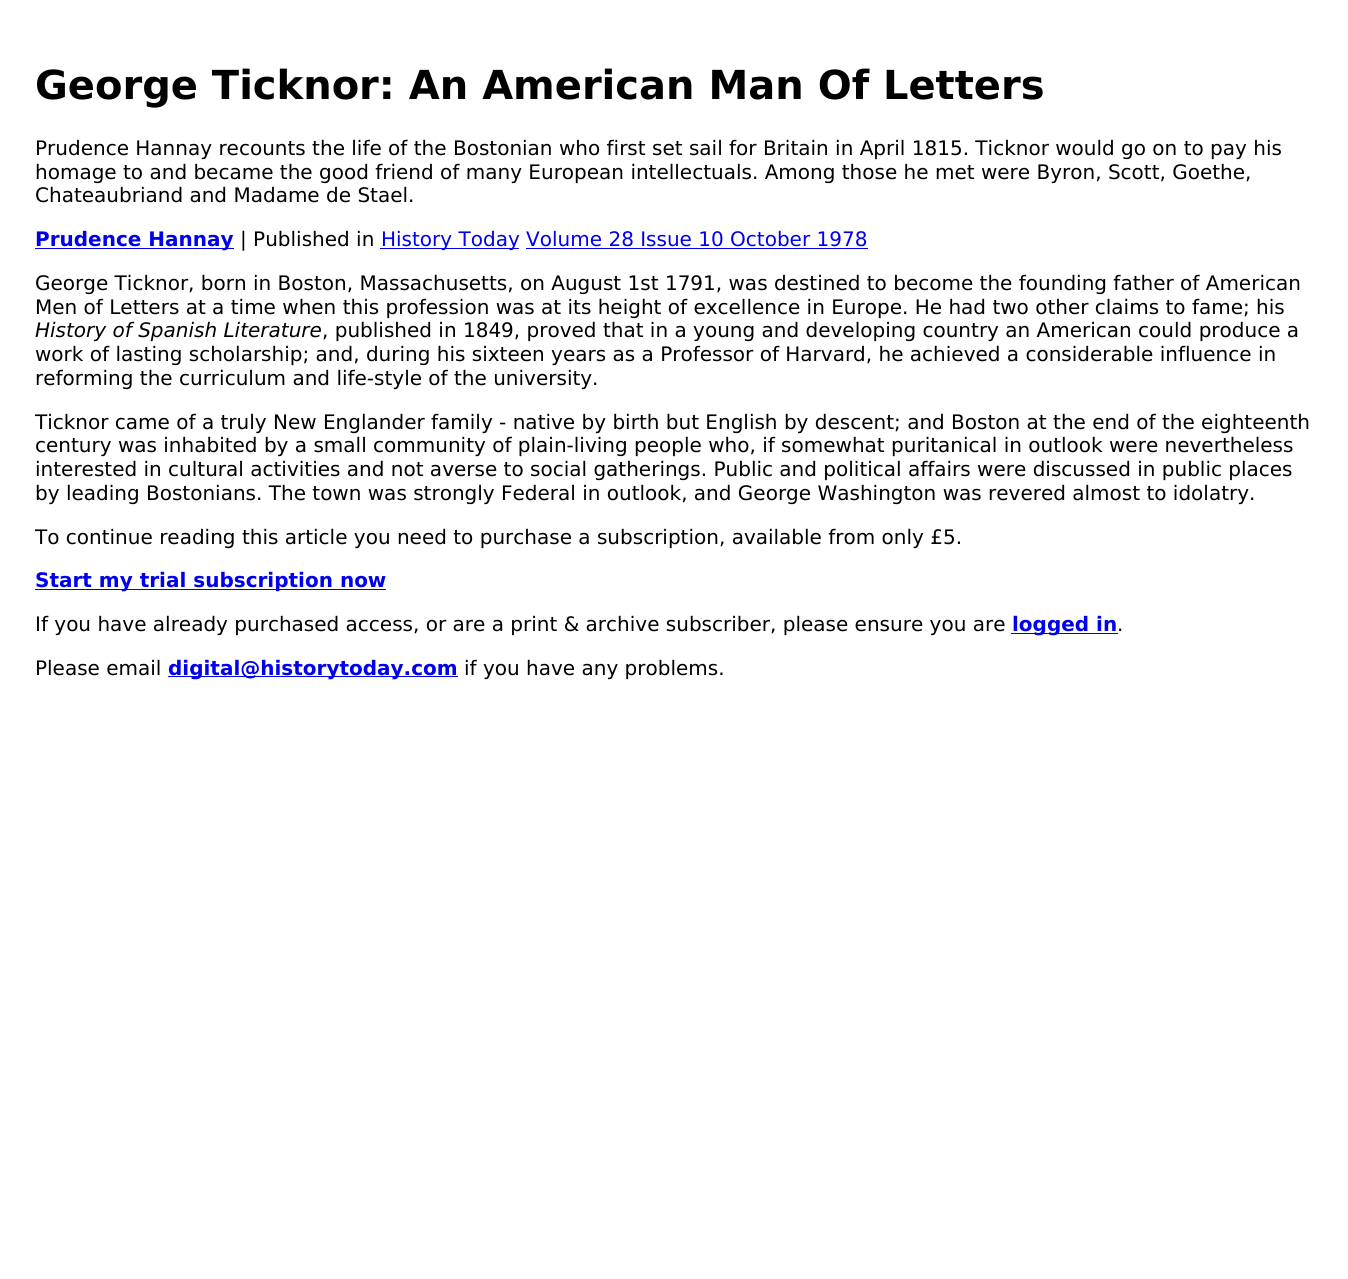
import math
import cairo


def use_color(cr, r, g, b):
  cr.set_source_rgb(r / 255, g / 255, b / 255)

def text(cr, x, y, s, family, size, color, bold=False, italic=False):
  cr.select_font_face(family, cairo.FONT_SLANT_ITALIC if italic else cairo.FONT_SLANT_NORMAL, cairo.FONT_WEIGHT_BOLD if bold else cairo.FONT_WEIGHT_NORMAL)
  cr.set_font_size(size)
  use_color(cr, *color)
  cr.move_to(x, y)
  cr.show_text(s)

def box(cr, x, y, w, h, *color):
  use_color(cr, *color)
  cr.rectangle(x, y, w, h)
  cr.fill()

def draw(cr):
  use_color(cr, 255, 255, 255)
  cr.paint()
  box(cr, 35, 248, 199, 1, 0, 0, 238)
  box(cr, 380, 248, 139, 1, 0, 0, 238)
  box(cr, 526, 248, 342, 1, 0, 0, 238)
  box(cr, 35, 589, 351, 1, 0, 0, 238)
  box(cr, 1011, 633, 107, 1, 0, 0, 238)
  box(cr, 168, 676, 290, 1, 0, 0, 238)
  text(cr, 35, 99, "George Ticknor: An American Man Of Letters", "DejaVu Sans", 40, (0, 0, 0), bold=True)
  text(cr, 35, 155, "Prudence Hannay recounts the life of the Bostonian who first set sail for Britain in April 1815. Ticknor would go on to pay his", "DejaVu Sans", 20, (0, 0, 0))
  text(cr, 35, 179, "homage to and became the good friend of many European intellectuals. Among those he met were Byron, Scott, Goethe,", "DejaVu Sans", 20, (0, 0, 0))
  text(cr, 35, 202, "Chateaubriand and Madame de Stael.", "DejaVu Sans", 20, (0, 0, 0))
  text(cr, 35, 246, "Prudence Hannay", "DejaVu Sans", 20, (0, 0, 238), bold=True)
  text(cr, 240, 246, "| Published in", "DejaVu Sans", 20, (0, 0, 0))
  text(cr, 381, 246, "History Today Volume 28 Issue 10 October 1978", "DejaVu Sans", 20, (0, 0, 238))
  text(cr, 35, 290, "George Ticknor, born in Boston, Massachusetts, on August 1st 1791, was destined to become the founding father of American", "DejaVu Sans", 20, (0, 0, 0))
  text(cr, 35, 314, "Men of Letters at a time when this profession was at its height of excellence in Europe. He had two other claims to fame; his", "DejaVu Sans", 20, (0, 0, 0))
  text(cr, 35, 337, "History of Spanish Literature", "DejaVu Sans", 20, (0, 0, 0), italic=True)
  text(cr, 322, 337, ", published in 1849, proved that in a young and developing country an American could produce a", "DejaVu Sans", 20, (0, 0, 0))
  text(cr, 35, 361, "work of lasting scholarship; and, during his sixteen years as a Professor of Harvard, he achieved a considerable influence in", "DejaVu Sans", 20, (0, 0, 0))
  text(cr, 35, 385, "reforming the curriculum and life-style of the university.", "DejaVu Sans", 20, (0, 0, 0))
  text(cr, 35, 429, "Ticknor came of a truly New Englander family - native by birth but English by descent; and Boston at the end of the eighteenth", "DejaVu Sans", 20, (0, 0, 0))
  text(cr, 35, 452, "century was inhabited by a small community of plain-living people who, if somewhat puritanical in outlook were nevertheless", "DejaVu Sans", 20, (0, 0, 0))
  text(cr, 35, 476, "interested in cultural activities and not averse to social gatherings. Public and political affairs were discussed in public places", "DejaVu Sans", 20, (0, 0, 0))
  text(cr, 35, 500, "by leading Bostonians. The town was strongly Federal in outlook, and George Washington was revered almost to idolatry.", "DejaVu Sans", 20, (0, 0, 0))
  text(cr, 35, 544, "To continue reading this article you need to purchase a subscription, available from only £5.", "DejaVu Sans", 20, (0, 0, 0))
  text(cr, 35, 587, "Start my trial subscription now", "DejaVu Sans", 20, (0, 0, 238), bold=True)
  text(cr, 35, 631, "If you have already purchased access, or are a print & archive subscriber, please ensure you are", "DejaVu Sans", 20, (0, 0, 0))
  text(cr, 1012, 631, "logged in", "DejaVu Sans", 20, (0, 0, 238), bold=True)
  text(cr, 1117, 631, ".", "DejaVu Sans", 20, (0, 0, 0))
  text(cr, 35, 675, "Please email", "DejaVu Sans", 20, (0, 0, 0))
  text(cr, 168, 675, "digital@historytoday.com", "DejaVu Sans", 20, (0, 0, 238), bold=True)
  text(cr, 464, 675, "if you have any problems.", "DejaVu Sans", 20, (0, 0, 0))


surface = cairo.ImageSurface(cairo.FORMAT_RGB24, 1348, 1279)
cr = cairo.Context(surface)
options = cairo.FontOptions()
options.set_hint_metrics(cairo.HINT_METRICS_OFF)
options.set_hint_style(cairo.HINT_STYLE_NONE)
cr.set_font_options(options)
cr.set_miter_limit(4)
draw(cr)
surface.write_to_png("out.png")
